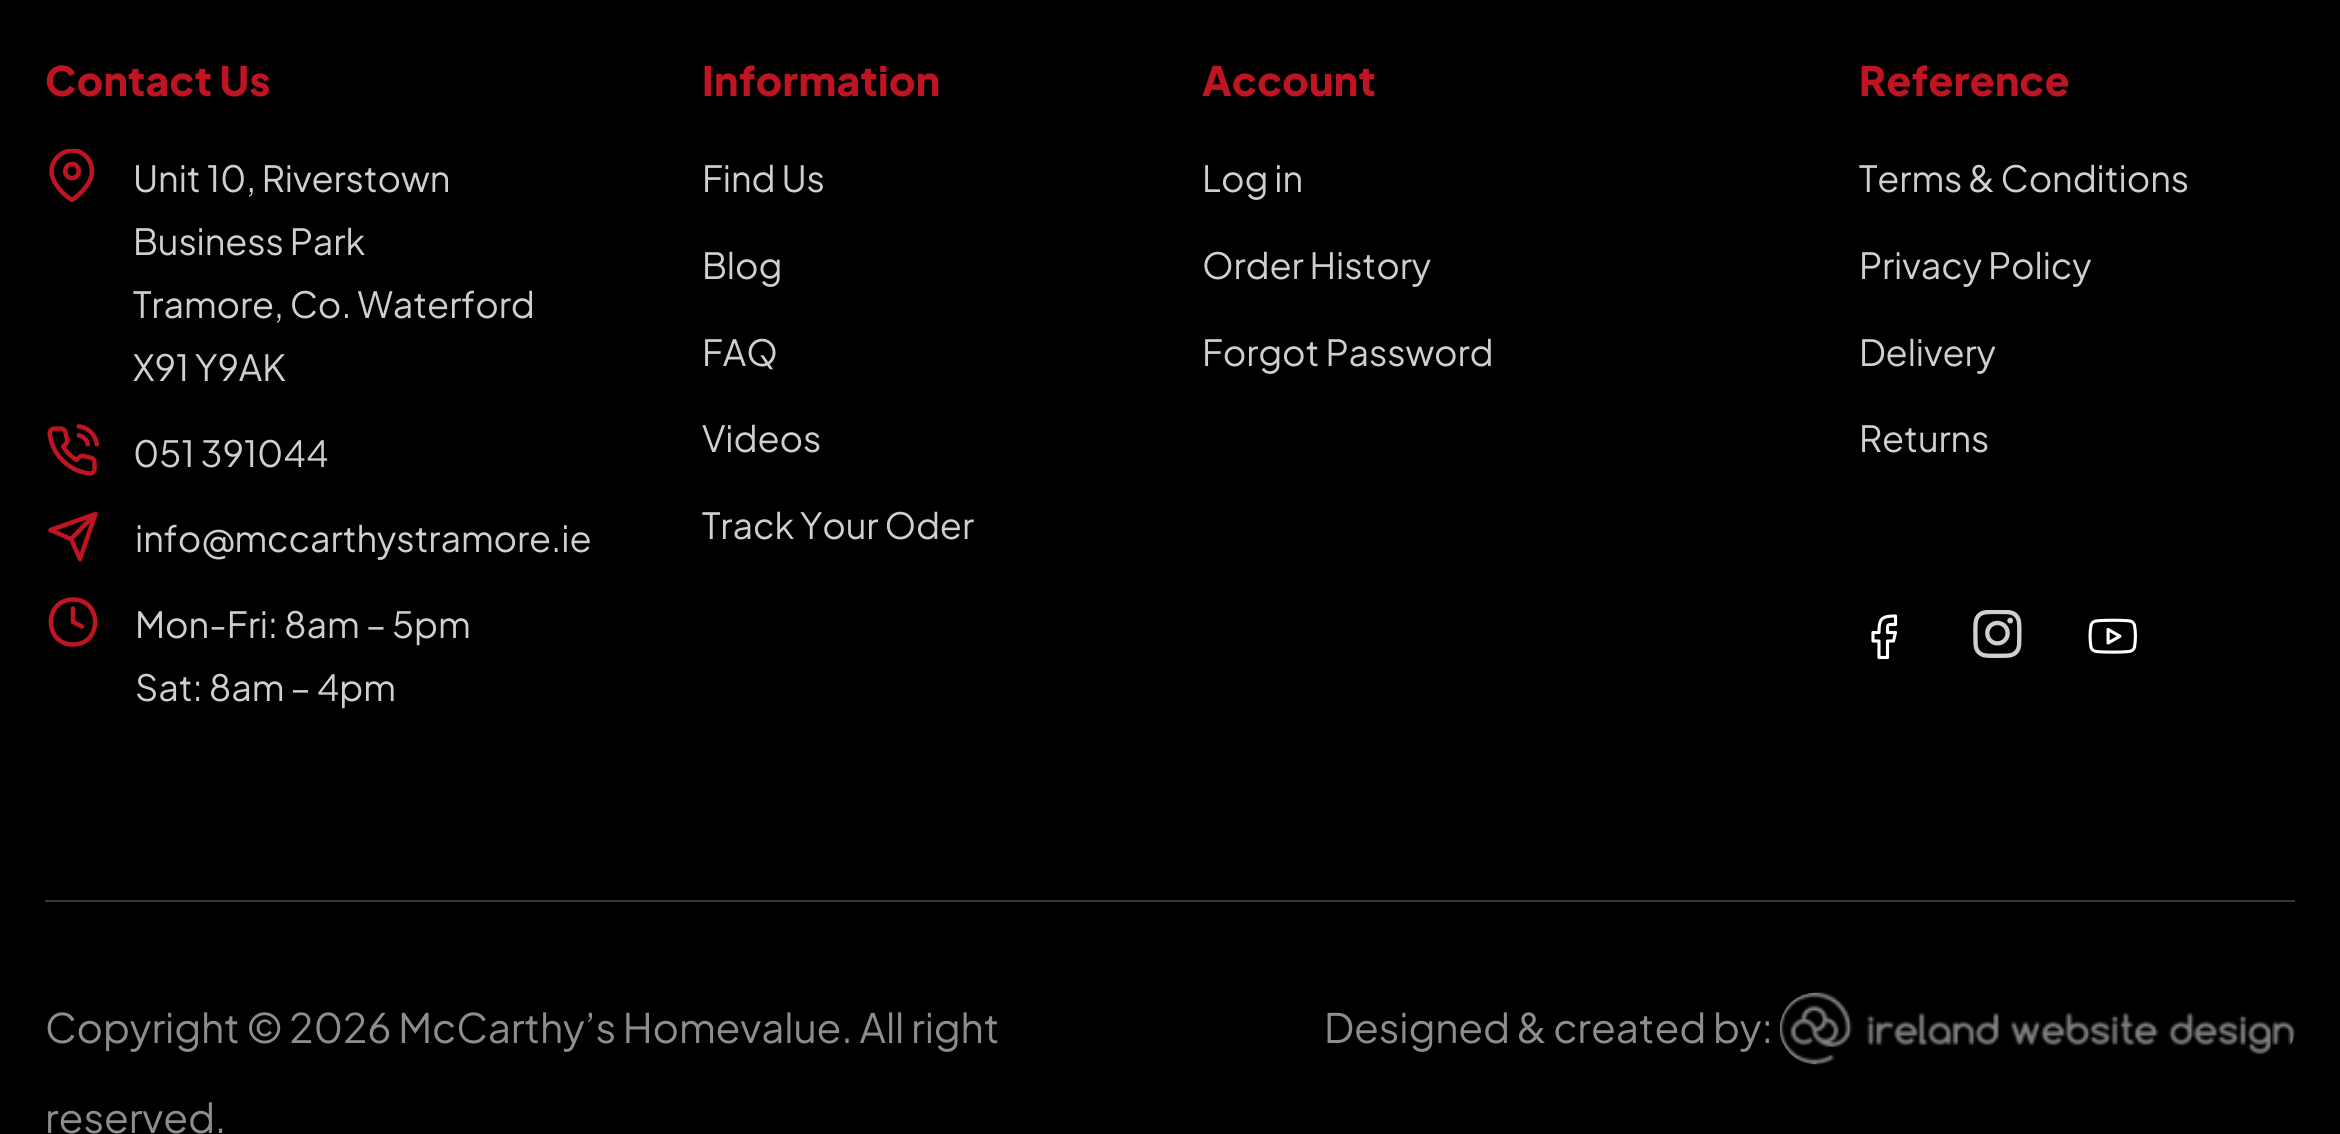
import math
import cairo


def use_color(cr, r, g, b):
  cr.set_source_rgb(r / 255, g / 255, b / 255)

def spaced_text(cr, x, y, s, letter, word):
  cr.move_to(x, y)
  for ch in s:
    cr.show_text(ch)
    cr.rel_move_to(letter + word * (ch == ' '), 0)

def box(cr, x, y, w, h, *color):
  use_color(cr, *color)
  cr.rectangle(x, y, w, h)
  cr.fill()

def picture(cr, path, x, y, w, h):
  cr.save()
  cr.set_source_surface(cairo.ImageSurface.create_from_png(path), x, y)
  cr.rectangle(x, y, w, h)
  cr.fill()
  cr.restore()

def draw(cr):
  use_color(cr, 0, 0, 0)
  cr.paint()
  cr.save()
  cr.rectangle(45, 149, 54, 54)
  cr.clip()
  cr.new_path()
  cr.move_to(92, 171)
  cr.curve_to(92, 187, 72, 200, 72, 200)
  cr.curve_to(64, 195, 55.5, 186.5, 52.5, 177)
  cr.curve_to(46.5, 155.5, 74, 141, 87.5, 158)
  cr.curve_to(90.5, 162, 92, 166.5, 92, 171)
  cr.close_path()
  use_color(cr, 191, 20, 34)
  cr.set_line_width(4.5)
  cr.set_line_cap(cairo.LINE_CAP_ROUND)
  cr.set_line_join(cairo.LINE_JOIN_ROUND)
  cr.stroke()
  cr.restore()
  cr.new_path()
  cr.move_to(72, 178)
  cr.curve_to(81, 178, 81, 164, 72, 164)
  cr.curve_to(63, 164.5, 63, 178, 72, 178)
  cr.close_path()
  use_color(cr, 191, 20, 34)
  cr.set_line_width(4.5)
  cr.set_line_cap(cairo.LINE_CAP_ROUND)
  cr.set_line_join(cairo.LINE_JOIN_ROUND)
  cr.stroke()
  picture(cr, "img_01.png", 47, 424, 52, 52)
  cr.new_path()
  cr.move_to(95.5, 514)
  cr.line_to(71, 539)
  cr.move_to(95.5, 514)
  cr.line_to(80, 559)
  cr.line_to(71, 539)
  cr.line_to(50.5, 530)
  cr.close_path()
  cr.stroke()
  cr.new_path()
  cr.move_to(73, 644.5)
  cr.curve_to(102.5, 644.5, 102.5, 599.5, 73, 599.5)
  cr.curve_to(43.5, 599.5, 43.5, 644.5, 73, 644.5)
  cr.close_path()
  cr.move_to(73, 608.5)
  cr.line_to(73, 622)
  cr.line_to(82, 626.5)
  cr.stroke()
  cr.new_path()
  cr.move_to(1895.5, 616)
  cr.curve_to(1881.5, 616, 1879, 618.5, 1879, 632.5)
  cr.line_to(1873, 632.5)
  cr.line_to(1873, 641)
  cr.line_to(1879, 641)
  cr.line_to(1879, 657.5)
  cr.line_to(1887.5, 657.5)
  cr.line_to(1887.5, 641)
  cr.line_to(1893.5, 641)
  cr.line_to(1895.5, 632.5)
  cr.line_to(1887.5, 632.5)
  cr.curve_to(1887.5, 623.5, 1886.5, 624.5, 1895.5, 624.5)
  cr.close_path()
  use_color(cr, 255, 255, 255)
  cr.set_line_width(3.1)
  cr.stroke()
  picture(cr, "img_02.png", 1973, 610, 49, 48)
  picture(cr, "img_03.png", 2088, 618, 49, 36)
  box(cr, 45, 900, 2250, 2, 54, 54, 54)
  picture(cr, "img_04.png", 1779, 992, 516, 73)
  cr.select_font_face("Plus Jakarta Sans ExtraBold")
  cr.set_font_size(40.5)
  use_color(cr, 191, 20, 34)
  spaced_text(cr, 45, 96, "Contact Us", 0.4, 0)
  cr.select_font_face("Plus Jakarta Sans")
  cr.set_font_size(36)
  use_color(cr, 207, 207, 207)
  spaced_text(cr, 133, 192, "Unit 10, Riverstown", -0.1, 0)
  spaced_text(cr, 133, 255, "Business Park", -0.1, 0)
  spaced_text(cr, 133, 318, "Tramore, Co. Waterford", -0.1, 0)
  spaced_text(cr, 133, 381, "X91 Y9AK", -0.1, 0)
  spaced_text(cr, 133, 467, "051 391044", -0.1, 0)
  spaced_text(cr, 135, 552, "info@mccarthystramore.ie", -0.1, 0)
  spaced_text(cr, 135, 638, "Mon-Fri: 8am – 5pm", -0.1, 0)
  spaced_text(cr, 135, 701, "Sat: 8am – 4pm", -0.1, 0)
  cr.select_font_face("Plus Jakarta Sans ExtraBold")
  cr.set_font_size(40.5)
  use_color(cr, 191, 20, 34)
  spaced_text(cr, 702, 96, "Information", 0.4, 0)
  cr.select_font_face("Plus Jakarta Sans")
  cr.set_font_size(36)
  use_color(cr, 207, 207, 207)
  spaced_text(cr, 702, 192, "Find Us", -0.1, 0)
  spaced_text(cr, 702, 279, "Blog", -0.1, 0)
  spaced_text(cr, 702, 366, "FAQ", -0.1, 0)
  spaced_text(cr, 702, 452, "Videos", -0.1, 0)
  spaced_text(cr, 702, 539, "Track Your Oder", -0.1, 0)
  cr.select_font_face("Plus Jakarta Sans ExtraBold")
  cr.set_font_size(40.5)
  use_color(cr, 191, 20, 34)
  spaced_text(cr, 1202, 96, "Account", 0.4, 0)
  cr.select_font_face("Plus Jakarta Sans")
  cr.set_font_size(36)
  use_color(cr, 207, 207, 207)
  spaced_text(cr, 1202, 192, "Log in", -0.1, 0)
  spaced_text(cr, 1202, 279, "Order History", -0.1, 0)
  spaced_text(cr, 1202, 366, "Forgot Password", -0.1, 0)
  cr.select_font_face("Plus Jakarta Sans ExtraBold")
  cr.set_font_size(40.5)
  use_color(cr, 191, 20, 34)
  spaced_text(cr, 1859, 96, "Reference", 0.4, 0)
  cr.select_font_face("Plus Jakarta Sans")
  cr.set_font_size(36)
  use_color(cr, 207, 207, 207)
  spaced_text(cr, 1859, 192, "Terms & Conditions", -0.1, 0)
  spaced_text(cr, 1859, 279, "Privacy Policy", -0.1, 0)
  spaced_text(cr, 1859, 366, "Delivery", -0.1, 0)
  spaced_text(cr, 1859, 452, "Returns", -0.1, 0)
  cr.set_font_size(40.5)
  use_color(cr, 141, 141, 141)
  spaced_text(cr, 45, 1043, "Copyright © 2026 McCarthy’s Homevalue. All right", -0.1, 0)
  spaced_text(cr, 45, 1133, "reserved.", -0.1, 0)
  spaced_text(cr, 1324, 1043, "Designed & created by:", -0.1, 0)


surface = cairo.ImageSurface(cairo.FORMAT_RGB24, 2340, 1134)
cr = cairo.Context(surface)
options = cairo.FontOptions()
options.set_hint_metrics(cairo.HINT_METRICS_OFF)
options.set_hint_style(cairo.HINT_STYLE_NONE)
cr.set_font_options(options)
cr.set_miter_limit(4)
draw(cr)
surface.write_to_png("out.png")
